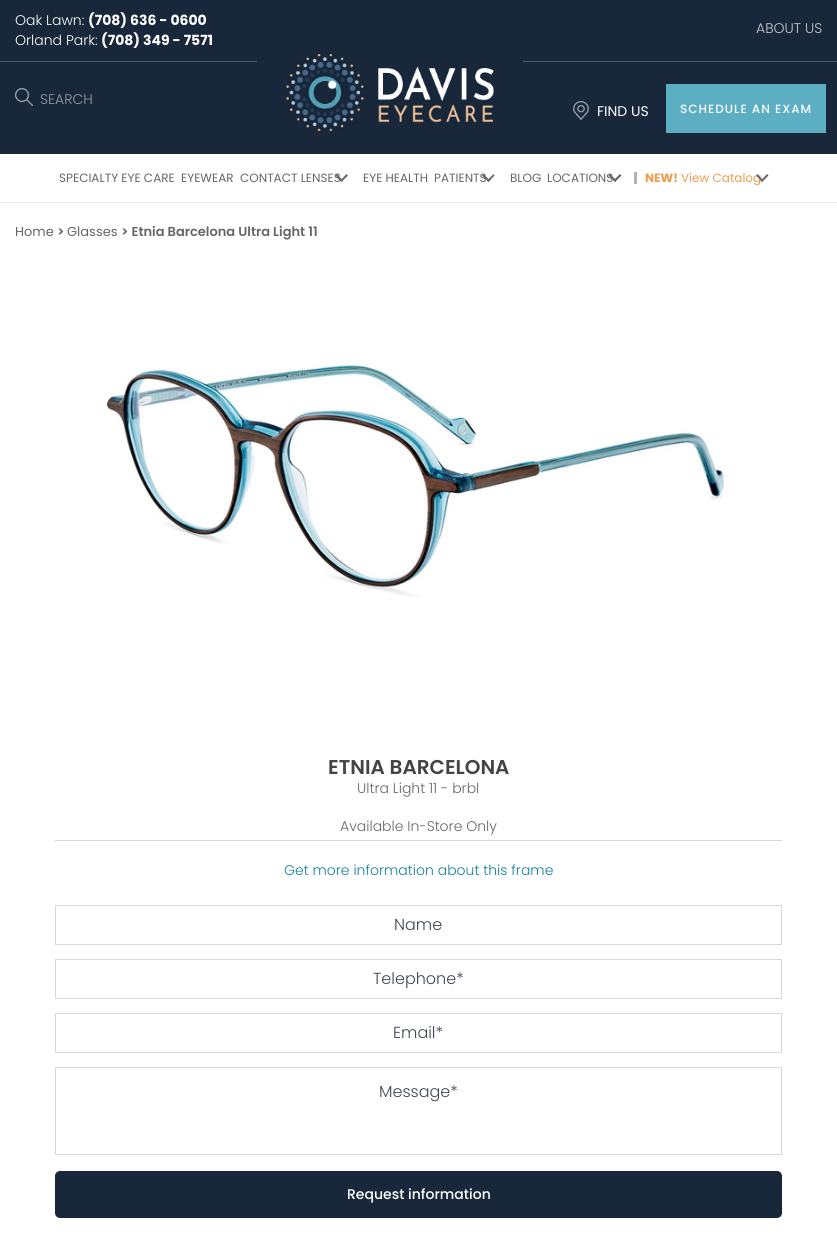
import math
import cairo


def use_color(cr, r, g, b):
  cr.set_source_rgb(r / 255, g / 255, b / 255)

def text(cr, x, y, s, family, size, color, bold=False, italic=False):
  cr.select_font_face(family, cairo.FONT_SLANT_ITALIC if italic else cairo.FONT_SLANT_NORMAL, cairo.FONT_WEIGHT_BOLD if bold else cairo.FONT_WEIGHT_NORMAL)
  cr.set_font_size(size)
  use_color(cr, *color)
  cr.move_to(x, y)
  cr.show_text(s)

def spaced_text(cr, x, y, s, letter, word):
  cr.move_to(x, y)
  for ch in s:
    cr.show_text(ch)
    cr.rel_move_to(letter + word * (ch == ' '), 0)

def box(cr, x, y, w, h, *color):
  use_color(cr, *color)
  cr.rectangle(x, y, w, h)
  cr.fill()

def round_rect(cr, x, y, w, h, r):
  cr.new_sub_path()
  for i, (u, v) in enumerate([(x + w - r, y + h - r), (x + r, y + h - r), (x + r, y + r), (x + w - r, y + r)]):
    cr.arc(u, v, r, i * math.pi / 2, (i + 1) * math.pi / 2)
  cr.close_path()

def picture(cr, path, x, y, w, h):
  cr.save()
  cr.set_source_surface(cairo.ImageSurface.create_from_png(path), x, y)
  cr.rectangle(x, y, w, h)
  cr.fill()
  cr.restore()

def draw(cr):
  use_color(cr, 255, 255, 255)
  cr.paint()
  box(cr, 0, 0, 837, 61, 24, 39, 58)
  box(cr, 0, 61, 837, 1, 77, 88, 101)
  box(cr, 0, 62, 837, 92, 24, 39, 58)
  picture(cr, "img_01.png", 15, 88, 18, 18)
  picture(cr, "img_02.png", 257, 54, 266, 77)
  picture(cr, "img_03.png", 573, 101, 16, 19)
  box(cr, 666, 84, 160, 49, 92, 174, 194)
  use_color(cr, 102, 102, 102)
  cr.new_path()
  cr.move_to(346.5, 174)
  cr.line_to(348, 175.5)
  cr.line_to(341.5, 182)
  cr.line_to(340.5, 180.5)
  cr.close_path()
  cr.fill()
  cr.new_path()
  cr.move_to(337, 174)
  cr.line_to(343, 180.5)
  cr.line_to(341.5, 182)
  cr.line_to(335.5, 175.5)
  cr.close_path()
  cr.fill()
  cr.new_path()
  cr.move_to(493.5, 174)
  cr.line_to(494.5, 175.5)
  cr.line_to(488.5, 182)
  cr.line_to(487, 180.5)
  cr.close_path()
  cr.fill()
  cr.new_path()
  cr.move_to(483.5, 174)
  cr.line_to(490, 180.5)
  cr.line_to(488.5, 182)
  cr.line_to(482, 175.5)
  cr.close_path()
  cr.fill()
  cr.new_path()
  cr.move_to(620, 174)
  cr.line_to(621.5, 175.5)
  cr.line_to(615, 182)
  cr.line_to(613.5, 180.5)
  cr.close_path()
  cr.fill()
  cr.new_path()
  cr.move_to(610, 174)
  cr.line_to(616.5, 180.5)
  cr.line_to(615, 182)
  cr.line_to(608.5, 175.5)
  cr.close_path()
  cr.fill()
  box(cr, 634, 172, 3, 12, 176, 178, 180)
  use_color(cr, 102, 102, 102)
  cr.new_path()
  cr.move_to(767, 174)
  cr.line_to(768.5, 175.5)
  cr.line_to(762, 182)
  cr.line_to(761, 180.5)
  cr.close_path()
  cr.fill()
  box(cr, 0, 202, 837, 1, 236, 236, 236)
  picture(cr, "img_04.png", 106, 364, 619, 234)
  box(cr, 55, 840, 727, 1, 215, 215, 215)
  cr.rectangle(55.5, 905.5, 726, 39)
  use_color(cr, 217, 217, 217)
  cr.set_line_width(1)
  cr.stroke()
  cr.rectangle(55.5, 959.5, 726, 39)
  cr.stroke()
  cr.rectangle(55.5, 1013.5, 726, 39)
  cr.stroke()
  cr.rectangle(55.5, 1067.5, 726, 87)
  cr.stroke()
  use_color(cr, 24, 39, 58)
  round_rect(cr, 55, 1171, 727, 47, 5)
  cr.fill()
  text(cr, 15, 25, "Oak Lawn:", "Poppins Light", 14, (255, 255, 255))
  text(cr, 88, 25, "(708) 636 - 0600", "Poppins", 14, (255, 255, 255), bold=True)
  text(cr, 15, 45, "Orland Park:", "Poppins Light", 14, (255, 255, 255))
  text(cr, 101, 45, "(708) 349 - 7571", "Poppins", 14, (255, 255, 255), bold=True)
  text(cr, 756, 33, "ABOUT US", "Poppins Light", 14, (202, 202, 202))
  text(cr, 40, 104, "SEARCH", "Poppins Light", 14, (154, 157, 163))
  text(cr, 597, 116, "FIND US", "Poppins", 14, (255, 255, 255))
  cr.select_font_face("Poppins Medium")
  cr.set_font_size(12)
  spaced_text(cr, 680, 113, "SCHEDULE AN EXAM", 1, 0)
  text(cr, 59, 182, "SPECIALTY EYE CARE", "Poppins", 12, (102, 102, 102))
  text(cr, 181, 182, "EYEWEAR", "Poppins", 12, (102, 102, 102))
  text(cr, 240, 182, "CONTACT LENSES", "Poppins", 12, (102, 102, 102))
  text(cr, 363, 182, "EYE HEALTH", "Poppins", 12, (102, 102, 102))
  text(cr, 434, 182, "PATIENTS", "Poppins", 12, (102, 102, 102))
  text(cr, 510, 182, "BLOG", "Poppins", 12, (102, 102, 102))
  text(cr, 547, 182, "LOCATIONS", "Poppins", 12, (102, 102, 102))
  text(cr, 645, 182, "NEW!", "Poppins", 12, (240, 156, 79), bold=True)
  text(cr, 681, 182, "View Catalog", "Poppins", 12, (240, 156, 79))
  use_color(cr, 102, 102, 102)
  cr.new_path()
  cr.move_to(757.5, 174)
  cr.line_to(763.5, 180.5)
  cr.line_to(762, 182)
  cr.line_to(756, 175.5)
  cr.close_path()
  cr.fill()
  text(cr, 15, 236, "Home", "Poppins", 13, (102, 102, 102))
  text(cr, 57, 236, ">", "Poppins SemiBold", 13, (102, 102, 102))
  text(cr, 67, 236, "Glasses", "Poppins", 13, (102, 102, 102))
  text(cr, 121, 236, "> Etnia Barcelona Ultra Light 11", "Poppins SemiBold", 13, (102, 102, 102))
  text(cr, 328, 774, "ETNIA BARCELONA", "Poppins SemiBold", 20, (68, 68, 68))
  text(cr, 357, 793, "Ultra Light 11 - brbl", "Poppins Light", 14, (102, 102, 102))
  text(cr, 340, 831, "Available In-Store Only", "Poppins Light", 14, (102, 102, 102))
  text(cr, 284, 875, "Get more information about this frame", "Poppins Light", 14, (20, 129, 156))
  text(cr, 394, 930, "Name", "Poppins Light", 16, (64, 70, 81))
  text(cr, 373, 984, "Telephone*", "Poppins Light", 16, (64, 70, 81))
  text(cr, 393, 1038, "Email*", "Poppins Light", 16, (64, 70, 81))
  text(cr, 379, 1097, "Message*", "Poppins Light", 16, (64, 70, 81))
  text(cr, 347, 1199, "Request information", "Poppins Medium", 14, (255, 255, 255))


surface = cairo.ImageSurface(cairo.FORMAT_RGB24, 837, 1250)
cr = cairo.Context(surface)
options = cairo.FontOptions()
options.set_hint_metrics(cairo.HINT_METRICS_OFF)
options.set_hint_style(cairo.HINT_STYLE_NONE)
cr.set_font_options(options)
cr.set_miter_limit(4)
draw(cr)
surface.write_to_png("out.png")
